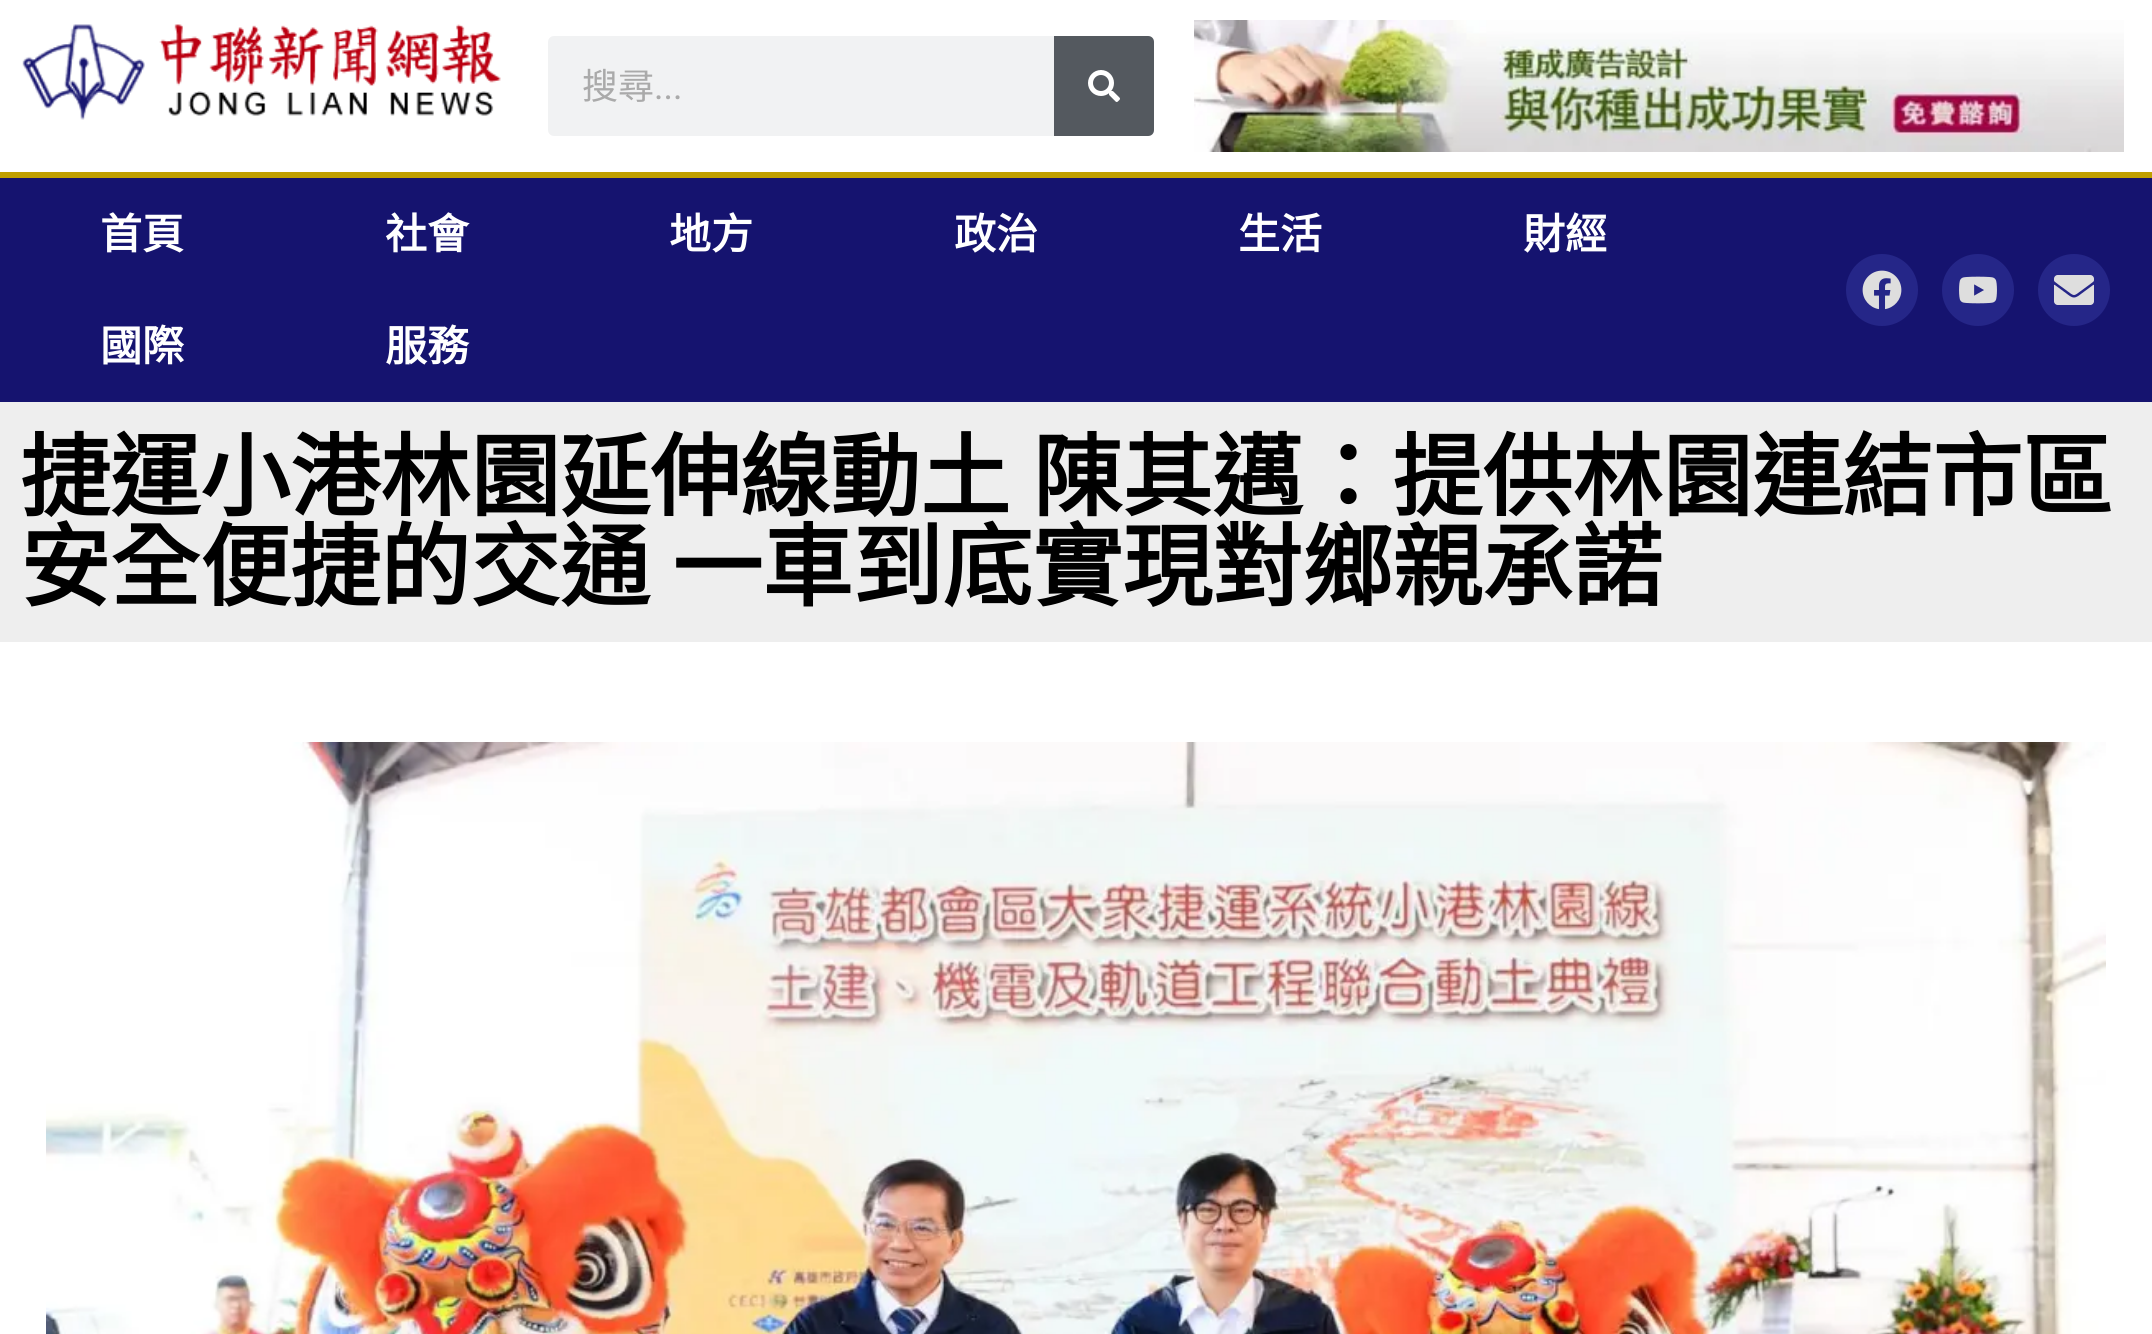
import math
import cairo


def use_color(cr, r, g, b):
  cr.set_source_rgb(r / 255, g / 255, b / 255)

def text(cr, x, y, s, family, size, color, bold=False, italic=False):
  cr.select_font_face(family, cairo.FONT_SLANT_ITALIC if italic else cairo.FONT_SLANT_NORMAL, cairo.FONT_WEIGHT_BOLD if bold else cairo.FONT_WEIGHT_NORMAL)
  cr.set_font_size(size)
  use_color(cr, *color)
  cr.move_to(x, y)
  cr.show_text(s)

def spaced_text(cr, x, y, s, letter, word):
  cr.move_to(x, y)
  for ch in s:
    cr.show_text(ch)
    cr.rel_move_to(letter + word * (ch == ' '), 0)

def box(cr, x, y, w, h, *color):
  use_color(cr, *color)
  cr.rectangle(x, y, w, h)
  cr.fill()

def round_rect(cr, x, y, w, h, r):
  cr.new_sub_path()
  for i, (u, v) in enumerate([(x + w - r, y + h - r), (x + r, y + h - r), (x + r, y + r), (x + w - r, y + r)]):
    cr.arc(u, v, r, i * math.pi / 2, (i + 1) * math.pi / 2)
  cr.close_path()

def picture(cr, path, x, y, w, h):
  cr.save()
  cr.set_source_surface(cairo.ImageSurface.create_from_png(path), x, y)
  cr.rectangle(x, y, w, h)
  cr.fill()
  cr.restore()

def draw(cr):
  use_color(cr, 255, 255, 255)
  cr.paint()
  picture(cr, "img_01.png", 22, 24, 479, 96)
  use_color(cr, 241, 242, 243)
  round_rect(cr, 548, 36, 606, 100, 6)
  cr.fill()
  use_color(cr, 84, 89, 95)
  cr.new_path()
  cr.move_to(1054, 36)
  cr.line_to(1148, 36)
  cr.curve_to(1151.5, 36, 1154, 38.5, 1154, 42)
  cr.line_to(1154, 130)
  cr.curve_to(1154, 133.5, 1151.5, 136, 1148, 136)
  cr.line_to(1054, 136)
  cr.close_path()
  cr.fill()
  picture(cr, "img_02.png", 1088, 70, 32, 32)
  picture(cr, "img_03.png", 1194, 20, 930, 132)
  box(cr, 0, 178, 2152, 224, 21, 19, 111)
  box(cr, 0, 172, 2152, 6, 191, 159, 0)
  use_color(cr, 37, 38, 136)
  cr.arc(1882, 290, 36, 0, 2 * math.pi)
  cr.fill()
  picture(cr, "img_04.png", 1862, 270, 40, 40)
  cr.arc(1978, 290, 36, 0, 2 * math.pi)
  cr.fill()
  picture(cr, "img_05.png", 1959, 276, 38, 28)
  cr.arc(2074, 290, 36, 0, 2 * math.pi)
  cr.fill()
  picture(cr, "img_06.png", 2054, 275, 40, 30)
  box(cr, 0, 402, 2152, 240, 238, 238, 238)
  picture(cr, "img_07.png", 46, 742, 2060, 592)
  text(cr, 582, 99, "搜尋", "Noto Sans CJK TC", 36, (170, 170, 170))
  text(cr, 654, 99, "...", "Roboto", 36, (170, 170, 170))
  text(cr, 100, 249, "首頁", "Noto Sans CJK TC", 42, (255, 255, 255), bold=True)
  text(cr, 385, 249, "社會", "Noto Sans CJK TC", 42, (255, 255, 255), bold=True)
  text(cr, 669, 249, "地方", "Noto Sans CJK TC", 42, (255, 255, 255), bold=True)
  text(cr, 954, 249, "政治", "Noto Sans CJK TC", 42, (255, 255, 255), bold=True)
  text(cr, 1238, 249, "生活", "Noto Sans CJK TC", 42, (255, 255, 255), bold=True)
  text(cr, 1523, 249, "財經", "Noto Sans CJK TC", 42, (255, 255, 255), bold=True)
  text(cr, 100, 361, "國際", "Noto Sans CJK TC", 42, (255, 255, 255), bold=True)
  text(cr, 385, 361, "服務", "Noto Sans CJK TC", 42, (255, 255, 255), bold=True)
  cr.set_font_size(90)
  use_color(cr, 0, 0, 0)
  spaced_text(cr, 20, 509, "捷運小港林園延伸線動土 陳其邁：提供林園連結市區", 0, 2)
  spaced_text(cr, 20, 599, "安全便捷的交通 一車到底實現對鄉親承諾", 0, 2)


surface = cairo.ImageSurface(cairo.FORMAT_RGB24, 2152, 1334)
cr = cairo.Context(surface)
options = cairo.FontOptions()
options.set_hint_metrics(cairo.HINT_METRICS_OFF)
options.set_hint_style(cairo.HINT_STYLE_NONE)
cr.set_font_options(options)
cr.set_miter_limit(4)
draw(cr)
surface.write_to_png("out.png")
